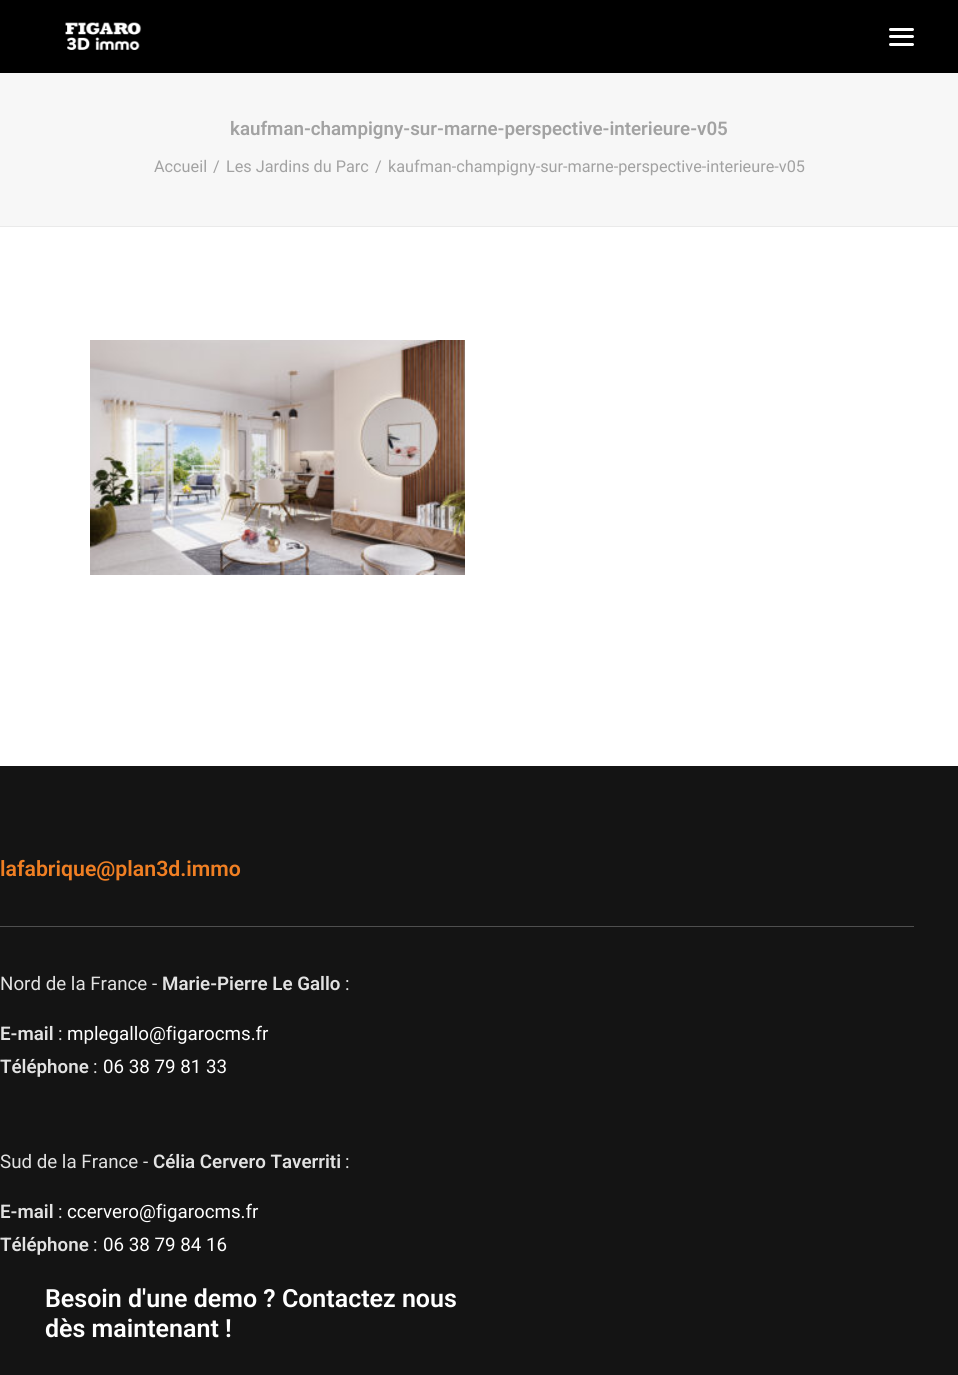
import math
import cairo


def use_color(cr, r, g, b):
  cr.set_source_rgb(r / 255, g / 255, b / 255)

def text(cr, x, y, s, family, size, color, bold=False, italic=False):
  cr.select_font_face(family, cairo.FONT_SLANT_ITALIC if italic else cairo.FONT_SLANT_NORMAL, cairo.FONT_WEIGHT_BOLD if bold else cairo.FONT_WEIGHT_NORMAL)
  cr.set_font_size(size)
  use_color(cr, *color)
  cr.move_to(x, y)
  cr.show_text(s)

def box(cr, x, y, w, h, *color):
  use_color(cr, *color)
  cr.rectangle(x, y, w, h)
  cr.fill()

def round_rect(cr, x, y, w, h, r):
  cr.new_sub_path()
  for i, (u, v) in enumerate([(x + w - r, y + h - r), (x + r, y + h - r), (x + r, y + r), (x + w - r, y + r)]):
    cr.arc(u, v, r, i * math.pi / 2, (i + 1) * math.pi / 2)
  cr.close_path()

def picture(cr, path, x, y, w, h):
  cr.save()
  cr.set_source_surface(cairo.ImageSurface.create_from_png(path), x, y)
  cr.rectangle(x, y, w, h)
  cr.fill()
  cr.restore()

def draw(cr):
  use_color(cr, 255, 255, 255)
  cr.paint()
  box(cr, 0, 0, 958, 73, 0, 0, 0)
  picture(cr, "img_01.png", 65, 22, 77, 28)
  use_color(cr, 255, 255, 255)
  round_rect(cr, 889, 35, 25, 3, 1.5)
  cr.fill()
  round_rect(cr, 889, 28, 25, 3, 1.5)
  cr.fill()
  round_rect(cr, 889, 43, 25, 3, 1.5)
  cr.fill()
  box(cr, 0, 73, 958, 153, 247, 247, 247)
  box(cr, 0, 226, 958, 1, 234, 234, 234)
  picture(cr, "img_02.png", 90, 340, 375, 235)
  box(cr, 0, 766, 958, 609, 20, 20, 20)
  box(cr, 0, 926, 914, 1, 79, 79, 79)
  text(cr, 230, 135, "kaufman-champigny-sur-marne-perspective-interieure-v05", "Roboto SemiBold", 18.75, (162, 162, 162))
  text(cr, 154, 172, "Accueil", "Roboto", 16.25, (162, 162, 162))
  text(cr, 213, 172, "/", "Roboto", 16.25, (162, 162, 162))
  text(cr, 226, 172, "Les Jardins du Parc", "Roboto", 16.25, (162, 162, 162))
  text(cr, 375, 172, "/", "Roboto", 16.25, (162, 162, 162))
  text(cr, 388, 172, "kaufman-champigny-sur-marne-perspective-interieure-v05", "Roboto", 16.25, (162, 162, 162))
  text(cr, 0, 876, "lafabrique@plan3d.immo", "Roboto SemiBold", 21.25, (240, 127, 35))
  text(cr, 0, 990, "Nord de la France -", "Roboto", 18.75, (226, 226, 226))
  text(cr, 162, 990, "Marie-Pierre Le Gallo", "Roboto SemiBold", 18.75, (226, 226, 226))
  text(cr, 345, 990, ":", "Roboto", 18.75, (226, 226, 226))
  text(cr, 0, 1040, "E-mail", "Roboto SemiBold", 18.75, (226, 226, 226))
  text(cr, 58, 1040, ":", "Roboto", 18.75, (226, 226, 226))
  text(cr, 67, 1040, "mplegallo@figarocms.fr", "Roboto", 18.75, (255, 255, 255))
  text(cr, 0, 1073, "Téléphone", "Roboto SemiBold", 18.75, (226, 226, 226))
  text(cr, 93, 1073, ":", "Roboto", 18.75, (226, 226, 226))
  text(cr, 103, 1073, "06 38 79 81 33", "Roboto", 18.75, (255, 255, 255))
  text(cr, 0, 1168, "Sud de la France -", "Roboto", 18.75, (226, 226, 226))
  text(cr, 153, 1168, "Célia Cervero Taverriti", "Roboto SemiBold", 18.75, (226, 226, 226))
  text(cr, 345, 1168, ":", "Roboto", 18.75, (226, 226, 226))
  text(cr, 0, 1218, "E-mail", "Roboto SemiBold", 18.75, (226, 226, 226))
  text(cr, 58, 1218, ":", "Roboto", 18.75, (226, 226, 226))
  text(cr, 67, 1218, "ccervero@figarocms.fr", "Roboto", 18.75, (255, 255, 255))
  text(cr, 0, 1251, "Téléphone", "Roboto SemiBold", 18.75, (226, 226, 226))
  text(cr, 93, 1251, ":", "Roboto", 18.75, (226, 226, 226))
  text(cr, 103, 1251, "06 38 79 84 16", "Roboto", 18.75, (255, 255, 255))
  text(cr, 45, 1307, "Besoin d'une demo ? Contactez nous", "Roboto SemiBold", 25, (255, 255, 255))
  text(cr, 45, 1337, "dès maintenant !", "Roboto SemiBold", 25, (255, 255, 255))


surface = cairo.ImageSurface(cairo.FORMAT_RGB24, 958, 1375)
cr = cairo.Context(surface)
options = cairo.FontOptions()
options.set_hint_metrics(cairo.HINT_METRICS_OFF)
options.set_hint_style(cairo.HINT_STYLE_NONE)
cr.set_font_options(options)
cr.set_miter_limit(4)
draw(cr)
surface.write_to_png("out.png")
